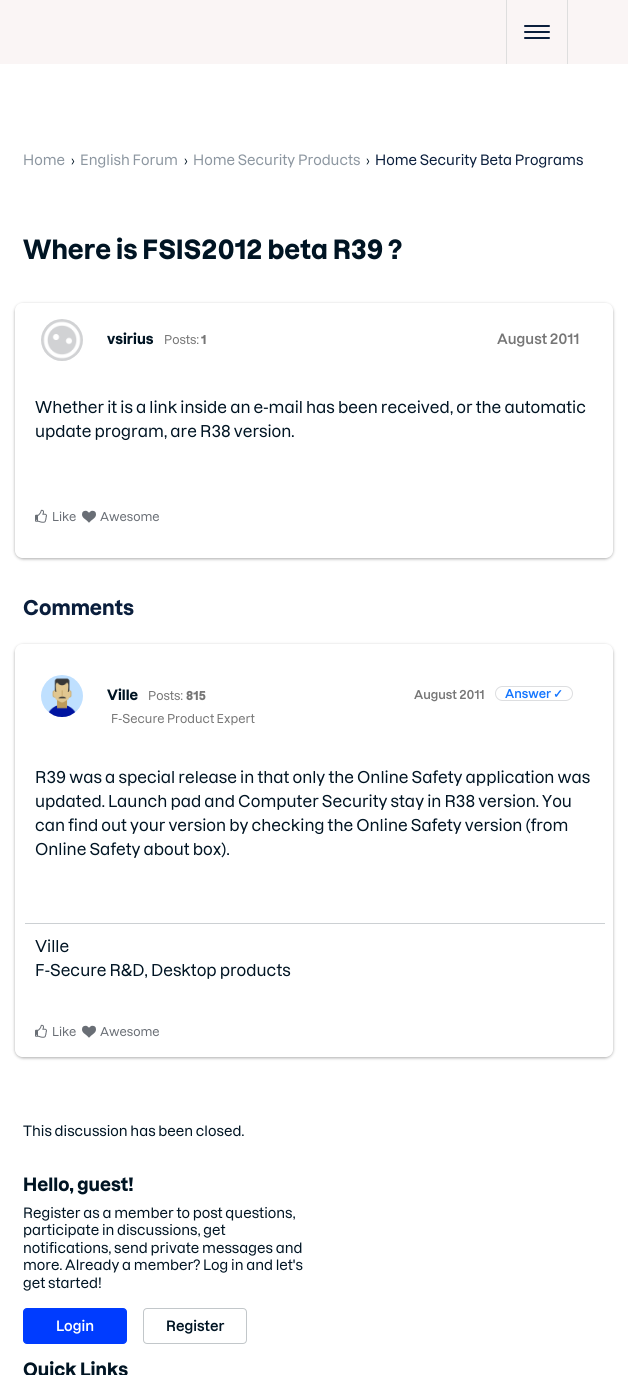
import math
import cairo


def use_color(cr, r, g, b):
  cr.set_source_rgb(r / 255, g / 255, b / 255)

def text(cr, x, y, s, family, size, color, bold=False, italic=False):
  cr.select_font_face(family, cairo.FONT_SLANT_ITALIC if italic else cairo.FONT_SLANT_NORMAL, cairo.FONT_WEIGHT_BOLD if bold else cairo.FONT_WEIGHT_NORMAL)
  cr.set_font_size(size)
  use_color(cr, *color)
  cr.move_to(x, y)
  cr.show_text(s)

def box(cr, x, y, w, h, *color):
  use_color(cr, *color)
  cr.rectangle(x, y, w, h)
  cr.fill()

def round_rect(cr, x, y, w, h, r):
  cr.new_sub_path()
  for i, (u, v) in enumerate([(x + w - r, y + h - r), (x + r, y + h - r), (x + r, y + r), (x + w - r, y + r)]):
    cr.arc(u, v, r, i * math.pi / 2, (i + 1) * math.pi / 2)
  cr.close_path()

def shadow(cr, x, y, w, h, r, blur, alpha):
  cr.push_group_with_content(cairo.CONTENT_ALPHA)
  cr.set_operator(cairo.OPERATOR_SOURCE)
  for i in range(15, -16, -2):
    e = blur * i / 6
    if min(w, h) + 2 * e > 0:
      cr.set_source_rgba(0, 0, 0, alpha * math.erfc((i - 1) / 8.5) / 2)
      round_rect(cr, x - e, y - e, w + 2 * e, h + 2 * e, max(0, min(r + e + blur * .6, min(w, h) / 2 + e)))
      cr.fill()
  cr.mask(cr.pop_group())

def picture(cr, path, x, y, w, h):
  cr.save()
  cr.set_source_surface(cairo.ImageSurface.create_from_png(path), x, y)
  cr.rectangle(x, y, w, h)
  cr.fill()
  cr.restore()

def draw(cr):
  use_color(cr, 255, 255, 255)
  cr.paint()
  box(cr, 0, 0, 628, 64, 250, 245, 245)
  box(cr, 567, 0, 1, 64, 222, 222, 222)
  box(cr, 506, 0, 1, 64, 222, 222, 222)
  use_color(cr, 10, 30, 60)
  round_rect(cr, 524, 31, 26, 2, 1)
  cr.fill()
  round_rect(cr, 524, 25, 26, 2, 1)
  cr.fill()
  round_rect(cr, 524, 37, 26, 2, 1)
  cr.fill()
  cr.save()
  cr.set_fill_rule(cairo.FILL_RULE_EVEN_ODD)
  cr.new_path()
  cr.move_to(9, 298)
  cr.line_to(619, 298)
  cr.line_to(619, 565)
  cr.line_to(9, 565)
  cr.close_path()
  cr.move_to(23, 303)
  cr.line_to(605, 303)
  cr.curve_to(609.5, 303, 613, 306.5, 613, 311)
  cr.line_to(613, 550)
  cr.curve_to(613, 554.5, 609.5, 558, 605, 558)
  cr.line_to(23, 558)
  cr.curve_to(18.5, 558, 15, 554.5, 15, 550)
  cr.line_to(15, 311)
  cr.curve_to(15, 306.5, 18.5, 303, 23, 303)
  cr.close_path()
  cr.clip()
  use_color(cr, 172, 172, 172)
  shadow(cr, 15, 304, 598, 255, 8, 1.5, 1)
  cr.restore()
  picture(cr, "img_01.png", 41, 319, 42, 42)
  picture(cr, "img_02.png", 35, 509, 12, 14)
  picture(cr, "img_03.png", 82, 510, 14, 13)
  cr.save()
  cr.set_fill_rule(cairo.FILL_RULE_EVEN_ODD)
  cr.new_path()
  cr.move_to(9, 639)
  cr.line_to(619, 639)
  cr.line_to(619, 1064)
  cr.line_to(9, 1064)
  cr.close_path()
  cr.move_to(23, 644)
  cr.line_to(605, 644)
  cr.curve_to(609.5, 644, 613, 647.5, 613, 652)
  cr.line_to(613, 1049)
  cr.curve_to(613, 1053.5, 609.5, 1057, 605, 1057)
  cr.line_to(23, 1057)
  cr.curve_to(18.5, 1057, 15, 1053.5, 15, 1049)
  cr.line_to(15, 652)
  cr.curve_to(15, 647.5, 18.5, 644, 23, 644)
  cr.close_path()
  cr.clip()
  use_color(cr, 172, 172, 172)
  shadow(cr, 15, 645, 598, 413, 8, 1.5, 1)
  cr.restore()
  picture(cr, "img_04.png", 41, 675, 42, 42)
  round_rect(cr, 495.5, 686.5, 77, 14, 7)
  use_color(cr, 221, 222, 224)
  cr.set_line_width(1)
  cr.stroke()
  box(cr, 25, 923, 580, 1, 204, 208, 211)
  picture(cr, "img_02.png", 35, 1024, 12, 14)
  picture(cr, "img_03.png", 82, 1025, 14, 13)
  use_color(cr, 0, 60, 255)
  round_rect(cr, 23.5, 1308.5, 103, 35, 3.5)
  cr.fill_preserve()
  cr.stroke()
  round_rect(cr, 143.5, 1308.5, 103, 35, 3.5)
  use_color(cr, 194, 199, 202)
  cr.stroke()
  text(cr, 23, 165, "Home", "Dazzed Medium", 14, (140, 150, 160))
  text(cr, 71, 165, "›", "Dazzed Medium", 12, (0, 20, 35))
  text(cr, 80, 165, "English Forum", "Dazzed Medium", 14, (140, 150, 160))
  text(cr, 184, 165, "›", "Dazzed Medium", 12, (0, 20, 35))
  text(cr, 193, 165, "Home Security Products", "Dazzed Medium", 14, (140, 150, 160))
  text(cr, 366, 165, "›", "Dazzed Medium", 12, (0, 20, 35))
  text(cr, 375, 165, "Home Security Beta Programs", "Dazzed Medium", 14, (10, 30, 60))
  text(cr, 23, 259, "Where is FSIS2012 beta R39 ?", "Dazzed", 26, (0, 20, 35), bold=True)
  text(cr, 107, 344, "vsirius", "Dazzed", 14, (0, 20, 35), bold=True)
  text(cr, 164, 344, "Posts:", "Dazzed Medium", 12, (118, 118, 118))
  text(cr, 201, 344, "1", "Dazzed", 12, (118, 118, 118), bold=True)
  text(cr, 497, 344, "August 2011", "Dazzed SemiBold", 14, (118, 118, 118))
  text(cr, 35, 413, "Whether it is a link inside an e-mail has been received, or the automatic", "Dazzed Medium", 16, (0, 20, 35))
  text(cr, 35, 437, "update program, are R38 version.", "Dazzed Medium", 16, (0, 20, 35))
  text(cr, 52, 521, "Like", "Dazzed Medium", 12, (105, 110, 117))
  text(cr, 100, 521, "Awesome", "Dazzed Medium", 12, (105, 110, 117))
  text(cr, 23, 615, "Comments", "Dazzed", 20, (10, 30, 60), bold=True)
  text(cr, 107, 700, "Ville", "Dazzed", 14, (0, 20, 35), bold=True)
  text(cr, 148, 700, "Posts:", "Dazzed Medium", 12, (118, 118, 118))
  text(cr, 186, 700, "815", "Dazzed", 12, (118, 118, 118), bold=True)
  text(cr, 111, 723, "F-Secure Product Expert", "Dazzed Medium", 12, (118, 118, 118))
  text(cr, 414, 699, "August 2011", "Dazzed SemiBold", 12, (118, 118, 118))
  text(cr, 505, 698, "Answer", "Dazzed SemiBold", 12, (20, 118, 255))
  text(cr, 553, 698, "✓", "DejaVu Sans", 12, (20, 118, 255), bold=True)
  text(cr, 35, 783, "R39 was a special release in that only the Online Safety application was", "Dazzed Medium", 16, (0, 20, 35))
  text(cr, 35, 807, "updated. Launch pad and Computer Security stay in R38 version. You", "Dazzed Medium", 16, (0, 20, 35))
  text(cr, 35, 831, "can find out your version by checking the Online Safety version (from", "Dazzed Medium", 16, (0, 20, 35))
  text(cr, 35, 855, "Online Safety about box).", "Dazzed Medium", 16, (0, 20, 35))
  text(cr, 35, 952, "Ville", "Dazzed Medium", 16, (0, 20, 35))
  text(cr, 35, 976, "F-Secure R&D, Desktop products", "Dazzed Medium", 16, (0, 20, 35))
  text(cr, 52, 1036, "Like", "Dazzed Medium", 12, (105, 110, 117))
  text(cr, 100, 1036, "Awesome", "Dazzed Medium", 12, (105, 110, 117))
  text(cr, 23, 1136, "This discussion has been closed.", "Dazzed Medium", 14, (0, 20, 35))
  text(cr, 23, 1191, "Hello, guest!", "Dazzed", 18, (0, 20, 35), bold=True)
  text(cr, 23, 1218, "Register as a member to post questions,", "Dazzed Medium", 14, (0, 20, 35))
  text(cr, 23, 1235, "participate in discussions, get", "Dazzed Medium", 14, (0, 20, 35))
  text(cr, 23, 1253, "notifications, send private messages and", "Dazzed Medium", 14, (0, 20, 35))
  text(cr, 23, 1270, "more. Already a member? Log in and let's", "Dazzed Medium", 14, (0, 20, 35))
  text(cr, 23, 1288, "get started!", "Dazzed Medium", 14, (0, 20, 35))
  text(cr, 56, 1331, "Login", "Dazzed SemiBold", 14, (255, 255, 255))
  text(cr, 166, 1331, "Register", "Dazzed SemiBold", 14, (0, 20, 35))
  text(cr, 23, 1376, "Quick Links", "Dazzed", 18, (0, 20, 35), bold=True)


surface = cairo.ImageSurface(cairo.FORMAT_RGB24, 628, 1375)
cr = cairo.Context(surface)
options = cairo.FontOptions()
options.set_hint_metrics(cairo.HINT_METRICS_OFF)
options.set_hint_style(cairo.HINT_STYLE_NONE)
cr.set_font_options(options)
cr.set_miter_limit(4)
draw(cr)
surface.write_to_png("out.png")
